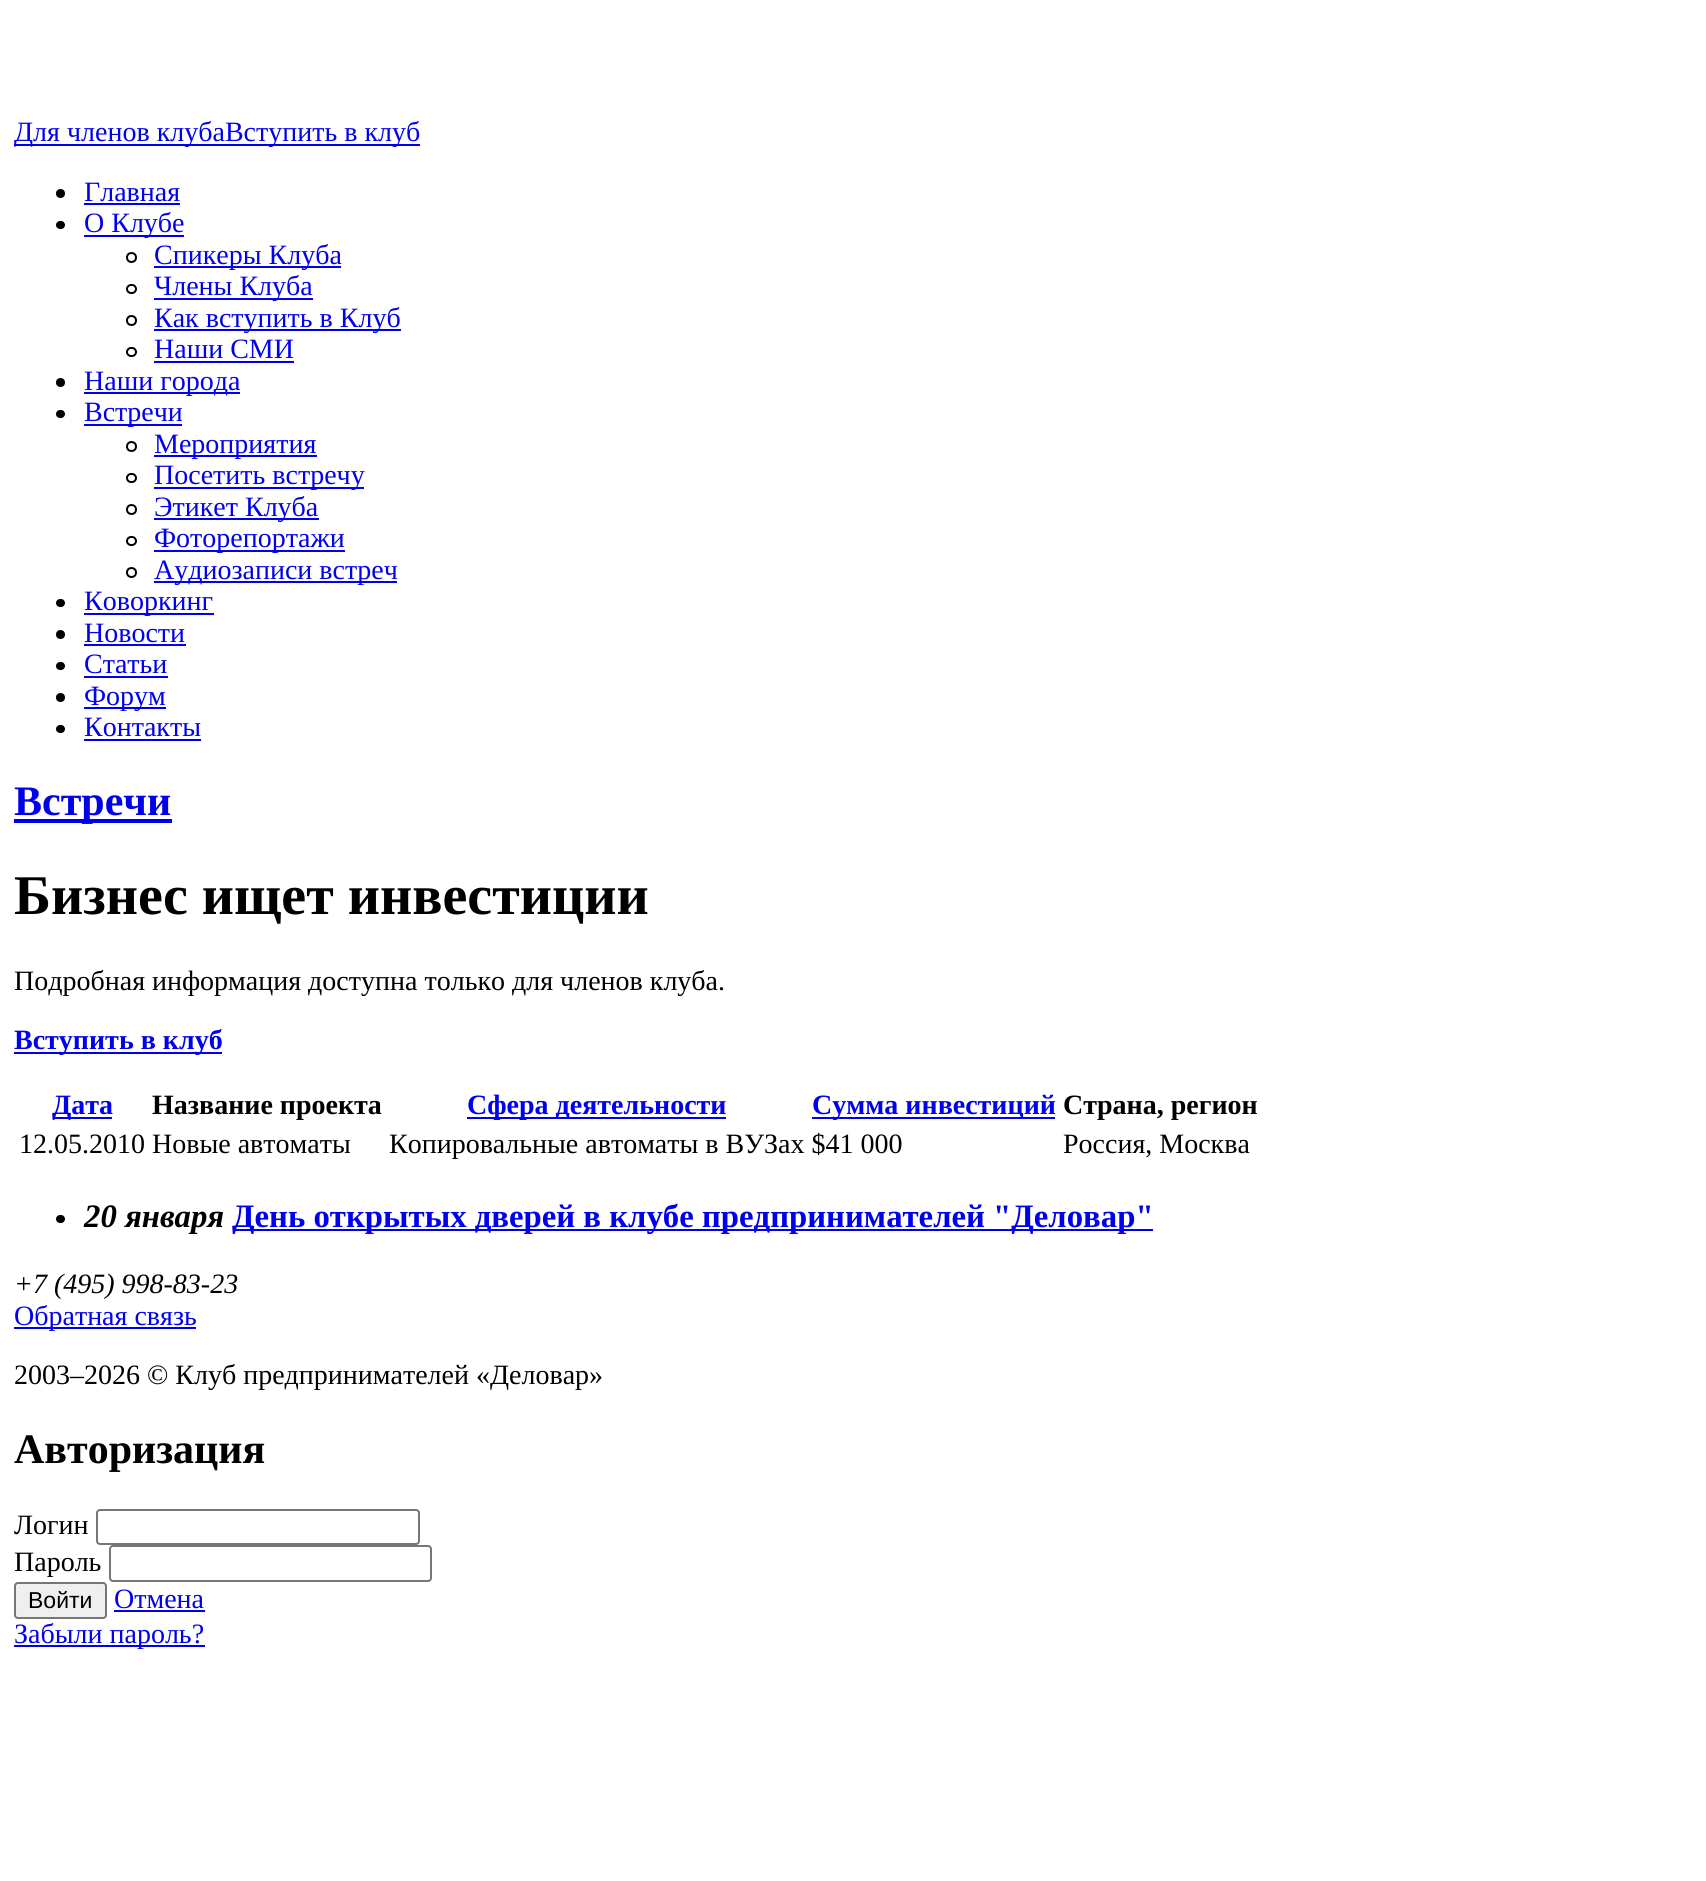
import math
import cairo


def use_color(cr, r, g, b):
  cr.set_source_rgb(r / 255, g / 255, b / 255)

def text(cr, x, y, s, family, size, color, bold=False, italic=False):
  cr.select_font_face(family, cairo.FONT_SLANT_ITALIC if italic else cairo.FONT_SLANT_NORMAL, cairo.FONT_WEIGHT_BOLD if bold else cairo.FONT_WEIGHT_NORMAL)
  cr.set_font_size(size)
  use_color(cr, *color)
  cr.move_to(x, y)
  cr.show_text(s)

def box(cr, x, y, w, h, *color):
  use_color(cr, *color)
  cr.rectangle(x, y, w, h)
  cr.fill()

def round_rect(cr, x, y, w, h, r):
  cr.new_sub_path()
  for i, (u, v) in enumerate([(x + w - r, y + h - r), (x + r, y + h - r), (x + r, y + r), (x + w - r, y + r)]):
    cr.arc(u, v, r, i * math.pi / 2, (i + 1) * math.pi / 2)
  cr.close_path()

def draw(cr):
  use_color(cr, 255, 255, 255)
  cr.paint()
  box(cr, 14, 144, 406, 2, 0, 0, 238)
  use_color(cr, 0, 0, 0)
  cr.arc(60.5, 193.5, 4.5, 0, 2 * math.pi)
  cr.fill()
  box(cr, 84, 203, 96, 2, 0, 0, 238)
  use_color(cr, 0, 0, 0)
  round_rect(cr, 56, 221, 9, 8, 4)
  cr.fill()
  box(cr, 84, 235, 100, 2, 0, 0, 238)
  cr.arc(131.5, 257.5, 4.5, 0, 2 * math.pi)
  use_color(cr, 0, 0, 0)
  cr.stroke()
  box(cr, 154, 266, 187, 2, 0, 0, 238)
  round_rect(cr, 127, 285, 9, 8, 4)
  use_color(cr, 0, 0, 0)
  cr.stroke()
  box(cr, 154, 298, 159, 2, 0, 0, 238)
  cr.arc(131.5, 320.5, 4.5, 0, 2 * math.pi)
  use_color(cr, 0, 0, 0)
  cr.stroke()
  box(cr, 154, 329, 247, 2, 0, 0, 238)
  round_rect(cr, 127, 348, 9, 8, 4)
  use_color(cr, 0, 0, 0)
  cr.stroke()
  box(cr, 154, 361, 140, 2, 0, 0, 238)
  use_color(cr, 0, 0, 0)
  cr.arc(60.5, 382.5, 4.5, 0, 2 * math.pi)
  cr.fill()
  box(cr, 84, 392, 156, 2, 0, 0, 238)
  use_color(cr, 0, 0, 0)
  round_rect(cr, 56, 410, 9, 8, 4)
  cr.fill()
  box(cr, 84, 424, 98, 2, 0, 0, 238)
  cr.arc(131.5, 446.5, 4.5, 0, 2 * math.pi)
  use_color(cr, 0, 0, 0)
  cr.stroke()
  box(cr, 154, 455, 163, 2, 0, 0, 238)
  round_rect(cr, 127, 474, 9, 8, 4)
  use_color(cr, 0, 0, 0)
  cr.stroke()
  box(cr, 154, 487, 210, 2, 0, 0, 238)
  cr.arc(131.5, 509.5, 4.5, 0, 2 * math.pi)
  use_color(cr, 0, 0, 0)
  cr.stroke()
  box(cr, 154, 518, 165, 2, 0, 0, 238)
  round_rect(cr, 127, 537, 9, 8, 4)
  use_color(cr, 0, 0, 0)
  cr.stroke()
  box(cr, 154, 550, 191, 2, 0, 0, 238)
  cr.arc(131.5, 572.5, 4.5, 0, 2 * math.pi)
  use_color(cr, 0, 0, 0)
  cr.stroke()
  box(cr, 154, 581, 243, 2, 0, 0, 238)
  use_color(cr, 0, 0, 0)
  round_rect(cr, 56, 599, 9, 8, 4)
  cr.fill()
  box(cr, 84, 613, 130, 2, 0, 0, 238)
  use_color(cr, 0, 0, 0)
  cr.arc(60.5, 634.5, 4.5, 0, 2 * math.pi)
  cr.fill()
  box(cr, 84, 644, 102, 2, 0, 0, 238)
  use_color(cr, 0, 0, 0)
  round_rect(cr, 56, 662, 9, 8, 4)
  cr.fill()
  box(cr, 84, 676, 84, 2, 0, 0, 238)
  use_color(cr, 0, 0, 0)
  cr.arc(60.5, 697.5, 4.5, 0, 2 * math.pi)
  cr.fill()
  box(cr, 84, 707, 82, 2, 0, 0, 238)
  use_color(cr, 0, 0, 0)
  round_rect(cr, 56, 725, 9, 8, 4)
  cr.fill()
  box(cr, 84, 739, 117, 2, 0, 0, 238)
  box(cr, 14, 819, 158, 4, 0, 0, 238)
  box(cr, 14, 1052, 208, 2, 0, 0, 238)
  box(cr, 53, 1117, 59, 2, 0, 0, 238)
  box(cr, 467, 1117, 259, 2, 0, 0, 238)
  box(cr, 812, 1117, 243, 2, 0, 0, 238)
  use_color(cr, 0, 0, 0)
  round_rect(cr, 56, 1215, 9, 8, 4)
  cr.fill()
  box(cr, 233, 1229, 920, 2, 0, 0, 238)
  box(cr, 14, 1327, 182, 2, 0, 0, 238)
  round_rect(cr, 97, 1510, 322, 34, 3)
  use_color(cr, 118, 118, 118)
  cr.stroke()
  round_rect(cr, 110, 1546, 321, 35, 3)
  cr.stroke()
  use_color(cr, 239, 239, 239)
  round_rect(cr, 15, 1583, 91, 35, 3)
  cr.fill_preserve()
  use_color(cr, 118, 118, 118)
  cr.stroke()
  box(cr, 114, 1610, 91, 2, 0, 0, 238)
  box(cr, 14, 1645, 191, 2, 0, 0, 238)
  text(cr, 14, 141, "Для членов клубаВступить в клуб", "Liberation Serif", 28, (0, 0, 238))
  text(cr, 84, 201, "Главная", "Liberation Serif", 28, (0, 0, 238))
  text(cr, 84, 232, "О Клубе", "Liberation Serif", 28, (0, 0, 238))
  text(cr, 154, 264, "Спикеры Клуба", "Liberation Serif", 28, (0, 0, 238))
  text(cr, 154, 295, "Члены Клуба", "Liberation Serif", 28, (0, 0, 238))
  text(cr, 154, 327, "Как вступить в Клуб", "Liberation Serif", 28, (0, 0, 238))
  text(cr, 154, 358, "Наши СМИ", "Liberation Serif", 28, (0, 0, 238))
  text(cr, 84, 390, "Наши города", "Liberation Serif", 28, (0, 0, 238))
  text(cr, 84, 421, "Встречи", "Liberation Serif", 28, (0, 0, 238))
  text(cr, 154, 453, "Мероприятия", "Liberation Serif", 28, (0, 0, 238))
  text(cr, 154, 484, "Посетить встречу", "Liberation Serif", 28, (0, 0, 238))
  text(cr, 154, 516, "Этикет Клуба", "Liberation Serif", 28, (0, 0, 238))
  text(cr, 154, 547, "Фоторепортажи", "Liberation Serif", 28, (0, 0, 238))
  text(cr, 154, 579, "Аудиозаписи встреч", "Liberation Serif", 28, (0, 0, 238))
  text(cr, 84, 610, "Коворкинг", "Liberation Serif", 28, (0, 0, 238))
  text(cr, 84, 642, "Новости", "Liberation Serif", 28, (0, 0, 238))
  text(cr, 84, 673, "Статьи", "Liberation Serif", 28, (0, 0, 238))
  text(cr, 84, 705, "Форум", "Liberation Serif", 28, (0, 0, 238))
  text(cr, 84, 736, "Контакты", "Liberation Serif", 28, (0, 0, 238))
  text(cr, 14, 815, "Встречи", "Liberation Serif", 42, (0, 0, 238), bold=True)
  text(cr, 14, 914, "Бизнес ищет инвестиции", "Liberation Serif", 56, (0, 0, 0), bold=True)
  text(cr, 14, 990, "Подробная информация доступна только для членов клуба.", "Liberation Serif", 28, (0, 0, 0))
  text(cr, 14, 1049, "Вступить в клуб", "Liberation Serif", 28, (0, 0, 238), bold=True)
  text(cr, 52, 1114, "Дата", "Liberation Serif", 28, (0, 0, 238), bold=True)
  text(cr, 152, 1114, "Название проекта", "Liberation Serif", 28, (0, 0, 0), bold=True)
  text(cr, 467, 1114, "Сфера деятельности", "Liberation Serif", 28, (0, 0, 238), bold=True)
  text(cr, 812, 1114, "Сумма инвестиций", "Liberation Serif", 28, (0, 0, 238), bold=True)
  text(cr, 1063, 1114, "Страна, регион", "Liberation Serif", 28, (0, 0, 0), bold=True)
  text(cr, 19, 1153, "12.05.2010 Новые автоматы", "Liberation Serif", 28, (0, 0, 0))
  text(cr, 389, 1153, "Копировальные автоматы в ВУЗах $41 000", "Liberation Serif", 28, (0, 0, 0))
  text(cr, 1063, 1153, "Россия, Москва", "Liberation Serif", 28, (0, 0, 0))
  text(cr, 84, 1227, "20 января", "Liberation Serif", 32.75, (0, 0, 0), bold=True, italic=True)
  text(cr, 232, 1227, "День открытых дверей в клубе предпринимателей \"Деловар\"", "Liberation Serif", 32.75, (0, 0, 238), bold=True)
  text(cr, 14, 1293, "+7 (495) 998-83-23", "Liberation Serif", 28, (0, 0, 0), italic=True)
  text(cr, 14, 1325, "Обратная связь", "Liberation Serif", 28, (0, 0, 238))
  text(cr, 14, 1384, "2003–2026 © Клуб предпринимателей «Деловар»", "Liberation Serif", 28, (0, 0, 0))
  text(cr, 14, 1463, "Авторизация", "Liberation Serif", 42, (0, 0, 0), bold=True)
  text(cr, 14, 1534, "Логин", "Liberation Serif", 28, (0, 0, 0))
  text(cr, 14, 1571, "Пароль", "Liberation Serif", 28, (0, 0, 0))
  text(cr, 28, 1608, "Войти", "Liberation Sans", 23, (0, 0, 0))
  text(cr, 114, 1608, "Отмена", "Liberation Serif", 28, (0, 0, 238))
  text(cr, 14, 1643, "Забыли пароль?", "Liberation Serif", 28, (0, 0, 238))


surface = cairo.ImageSurface(cairo.FORMAT_RGB24, 1706, 1881)
cr = cairo.Context(surface)
options = cairo.FontOptions()
options.set_hint_metrics(cairo.HINT_METRICS_OFF)
options.set_hint_style(cairo.HINT_STYLE_NONE)
cr.set_font_options(options)
cr.set_miter_limit(4)
draw(cr)
surface.write_to_png("out.png")
